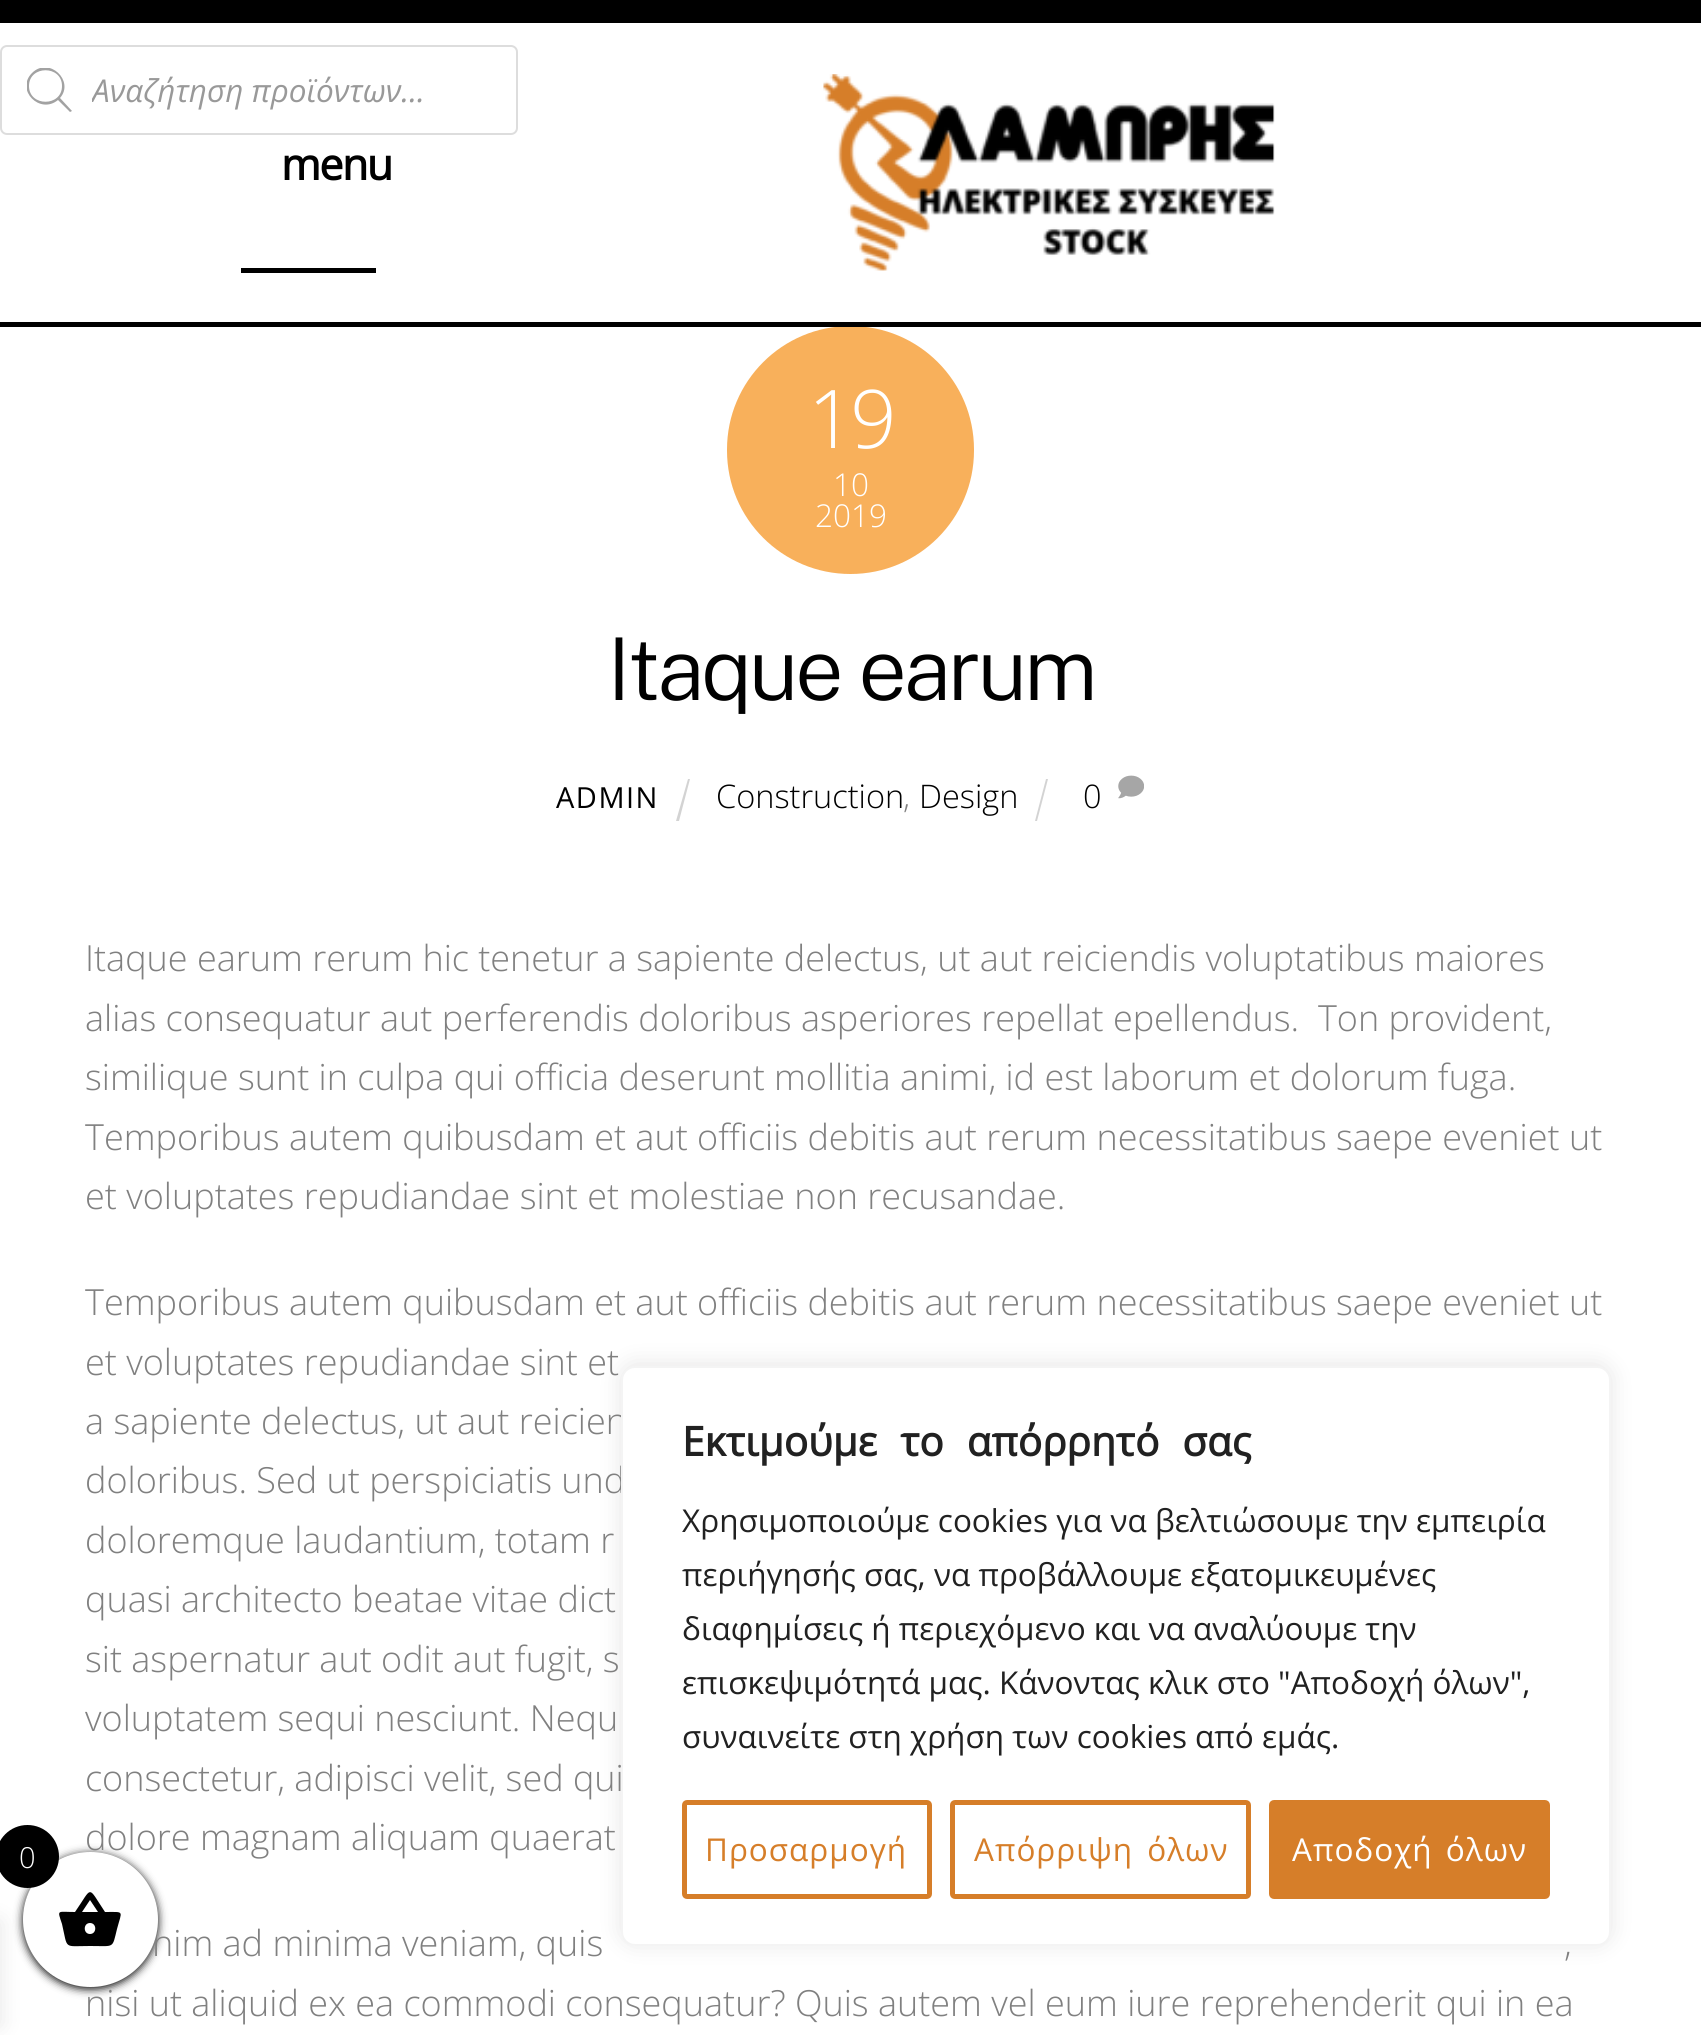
import math
import cairo


def use_color(cr, r, g, b):
  cr.set_source_rgb(r / 255, g / 255, b / 255)

def text(cr, x, y, s, family, size, color, bold=False, italic=False):
  cr.select_font_face(family, cairo.FONT_SLANT_ITALIC if italic else cairo.FONT_SLANT_NORMAL, cairo.FONT_WEIGHT_BOLD if bold else cairo.FONT_WEIGHT_NORMAL)
  cr.set_font_size(size)
  use_color(cr, *color)
  cr.move_to(x, y)
  cr.show_text(s)

def spaced_text(cr, x, y, s, letter, word):
  cr.move_to(x, y)
  for ch in s:
    cr.show_text(ch)
    cr.rel_move_to(letter + word * (ch == ' '), 0)

def box(cr, x, y, w, h, *color):
  use_color(cr, *color)
  cr.rectangle(x, y, w, h)
  cr.fill()

def round_rect(cr, x, y, w, h, r):
  cr.new_sub_path()
  for i, (u, v) in enumerate([(x + w - r, y + h - r), (x + r, y + h - r), (x + r, y + r), (x + w - r, y + r)]):
    cr.arc(u, v, r, i * math.pi / 2, (i + 1) * math.pi / 2)
  cr.close_path()

def shadow(cr, x, y, w, h, r, blur, alpha):
  cr.push_group_with_content(cairo.CONTENT_ALPHA)
  cr.set_operator(cairo.OPERATOR_SOURCE)
  for i in range(15, -16, -2):
    e = blur * i / 6
    if min(w, h) + 2 * e > 0:
      cr.set_source_rgba(0, 0, 0, alpha * math.erfc((i - 1) / 8.5) / 2)
      round_rect(cr, x - e, y - e, w + 2 * e, h + 2 * e, max(0, min(r + e + blur * .6, min(w, h) / 2 + e)))
      cr.fill()
  cr.mask(cr.pop_group())

def picture(cr, path, x, y, w, h):
  cr.save()
  cr.set_source_surface(cairo.ImageSurface.create_from_png(path), x, y)
  cr.rectangle(x, y, w, h)
  cr.fill()
  cr.restore()

def draw(cr):
  use_color(cr, 255, 255, 255)
  cr.paint()
  box(cr, 0, 0, 1701, 23, 0, 0, 0)
  use_color(cr, 248, 176, 91)
  round_rect(cr, 727, 326, 247, 248, 123.5)
  cr.fill()
  box(cr, 0, 322, 1701, 5, 0, 0, 0)
  round_rect(cr, 1, 46, 516, 88, 6)
  use_color(cr, 221, 221, 221)
  cr.stroke()
  cr.save()
  cr.rectangle(27, 68, 45, 45)
  cr.clip()
  use_color(cr, 162, 162, 162)
  cr.new_path()
  cr.move_to(72, 111)
  cr.line_to(60, 98)
  cr.curve_to(75, 81, 49, 56, 32, 73)
  cr.curve_to(15, 90, 40, 115, 58, 100)
  cr.line_to(70, 112)
  cr.close_path()
  cr.move_to(29, 86)
  cr.curve_to(29, 65, 62, 65, 62, 86)
  cr.curve_to(62, 107, 29, 107, 29, 86)
  cr.close_path()
  cr.fill()
  cr.restore()
  box(cr, 241, 268, 135, 5, 0, 0, 0)
  picture(cr, "img_01.png", 823, 74, 452, 197)
  use_color(cr, 211, 211, 211)
  cr.new_path()
  cr.move_to(688, 779)
  cr.line_to(690, 779)
  cr.line_to(679, 821)
  cr.line_to(676, 821)
  cr.close_path()
  cr.fill()
  cr.new_path()
  cr.move_to(1046, 779)
  cr.line_to(1048, 779)
  cr.line_to(1037, 821)
  cr.line_to(1035, 821)
  cr.close_path()
  cr.fill()
  picture(cr, "img_02.png", 1118, 775, 26, 24)
  use_color(cr, 0, 0, 0)
  shadow(cr, 23, 1854, 135, 135, 67.5, 4.5, 1)
  shadow(cr, -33, 1922, 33, 103, 0, 11, 0.1)
  use_color(cr, 172, 171, 171)
  shadow(cr, 621, 1364, 990, 580, 14, 11, 0.3)
  cr.save()
  cr.rectangle(92, 70, 390, 43)
  cr.clip()
  text(cr, 92, 102, "Αναζήτηση προϊόντων...", "Open Sans", 31.5, (153, 153, 153), italic=True)
  cr.restore()
  cr.select_font_face("Open Sans", cairo.FONT_SLANT_NORMAL, cairo.FONT_WEIGHT_BOLD)
  cr.set_font_size(43)
  use_color(cr, 0, 0, 0)
  spaced_text(cr, 281, 180, "menu", -1.5, 0)
  cr.select_font_face("Open Sans Light")
  cr.set_font_size(81)
  use_color(cr, 255, 255, 255)
  spaced_text(cr, 808, 448, "19", -4, 0)
  text(cr, 833, 496, "10", "Open Sans Light", 31.5, (255, 255, 255))
  text(cr, 815, 527, "2019", "Open Sans Light", 31.5, (255, 255, 255))
  cr.select_font_face("Public Sans Light")
  cr.set_font_size(86.5)
  use_color(cr, 0, 0, 0)
  spaced_text(cr, 607, 700, "Itaque earum", -3.5, 0)
  cr.select_font_face("Open Sans")
  cr.set_font_size(29)
  spaced_text(cr, 556, 808, "ADMIN", 1.5, 0)
  text(cr, 716, 808, "Construction", "Open Sans Light", 32.5, (0, 0, 0))
  text(cr, 903, 808, ",", "Open Sans Light", 32.5, (128, 128, 128))
  text(cr, 919, 808, "Design", "Open Sans Light", 32.5, (0, 0, 0))
  text(cr, 1083, 808, "0", "Open Sans Light", 32.5, (0, 0, 0))
  text(cr, 85, 971, "Itaque earum rerum hic tenetur a sapiente delectus, ut aut reiciendis voluptatibus maiores", "Open Sans Light", 36, (128, 128, 128))
  text(cr, 85, 1031, "alias consequatur aut perferendis doloribus asperiores repellat epellendus.  Ton provident,", "Open Sans Light", 36, (128, 128, 128))
  text(cr, 85, 1090, "similique sunt in culpa qui officia deserunt mollitia animi, id est laborum et dolorum fuga.", "Open Sans Light", 36, (128, 128, 128))
  text(cr, 85, 1150, "Temporibus autem quibusdam et aut officiis debitis aut rerum necessitatibus saepe eveniet ut", "Open Sans Light", 36, (128, 128, 128))
  text(cr, 85, 1209, "et voluptates repudiandae sint et molestiae non recusandae.", "Open Sans Light", 36, (128, 128, 128))
  text(cr, 85, 1315, "Temporibus autem quibusdam et aut officiis debitis aut rerum necessitatibus saepe eveniet ut", "Open Sans Light", 36, (128, 128, 128))
  text(cr, 85, 1375, "et voluptates repudiandae sint et", "Open Sans Light", 36, (128, 128, 128))
  text(cr, 85, 1434, "a sapiente delectus, ut aut reicien", "Open Sans Light", 36, (128, 128, 128))
  text(cr, 85, 1493, "doloribus. Sed ut perspiciatis und", "Open Sans Light", 36, (128, 128, 128))
  text(cr, 85, 1553, "doloremque laudantium, totam r", "Open Sans Light", 36, (128, 128, 128))
  text(cr, 85, 1612, "quasi architecto beatae vitae dict", "Open Sans Light", 36, (128, 128, 128))
  text(cr, 85, 1672, "sit aspernatur aut odit aut fugit, s", "Open Sans Light", 36, (128, 128, 128))
  text(cr, 85, 1731, "voluptatem sequi nesciunt. Nequ", "Open Sans Light", 36, (128, 128, 128))
  text(cr, 85, 1791, "consectetur, adipisci velit, sed qui", "Open Sans Light", 36, (128, 128, 128))
  text(cr, 85, 1850, "dolore magnam aliquam quaerat", "Open Sans Light", 36, (128, 128, 128))
  text(cr, 152, 1956, "nim ad minima veniam, quis", "Open Sans Light", 36, (128, 128, 128))
  text(cr, 1564, 1956, ",", "Open Sans Light", 36, (128, 128, 128))
  text(cr, 85, 2016, "nisi ut aliquid ex ea commodi consequatur? Quis autem vel eum iure reprehenderit qui in ea", "Open Sans Light", 36, (128, 128, 128))
  use_color(cr, 255, 255, 255)
  cr.new_path()
  cr.arc(90.5, 1919.5, 67.5, 0, 2 * math.pi)
  cr.fill()
  use_color(cr, 0, 0, 0)
  cr.arc(27.5, 1856.5, 31.5, 0, 2 * math.pi)
  cr.fill()
  text(cr, 19, 1868, "0", "Open Sans Light", 29, (255, 255, 255))
  use_color(cr, 0, 0, 0)
  cr.new_path()
  cr.move_to(90, 1934)
  cr.curve_to(97, 1934, 97, 1923, 90, 1923)
  cr.curve_to(83, 1923, 83, 1934, 90, 1934)
  cr.close_path()
  cr.move_to(82, 1912)
  cr.line_to(98, 1912)
  cr.line_to(90, 1900)
  cr.close_path()
  cr.move_to(105, 1912)
  cr.curve_to(125, 1912, 122, 1910, 117, 1929)
  cr.curve_to(112, 1949, 115, 1946, 90, 1946)
  cr.curve_to(63, 1946, 68, 1950, 62, 1924)
  cr.curve_to(57, 1909, 57, 1912, 75, 1912)
  cr.curve_to(93, 1886, 87, 1885, 105, 1912)
  cr.close_path()
  cr.fill()
  use_color(cr, 255, 255, 255)
  round_rect(cr, 622, 1367, 988, 578, 13)
  cr.fill_preserve()
  use_color(cr, 244, 244, 244)
  cr.stroke()
  cr.select_font_face("Open Sans", cairo.FONT_SLANT_NORMAL, cairo.FONT_WEIGHT_BOLD)
  cr.set_font_size(40.5)
  use_color(cr, 33, 33, 33)
  spaced_text(cr, 682, 1456, "Εκτιμούμε το απόρρητό σας", 0, 12.5)
  text(cr, 682, 1532, "Χρησιμοποιούμε cookies για να βελτιώσουμε την εμπειρία", "Open Sans", 31.5, (33, 33, 33))
  text(cr, 682, 1586, "περιήγησής σας, να προβάλλουμε εξατομικευμένες", "Open Sans", 31.5, (33, 33, 33))
  text(cr, 682, 1640, "διαφημίσεις ή περιεχόμενο και να αναλύουμε την", "Open Sans", 31.5, (33, 33, 33))
  text(cr, 682, 1694, "επισκεψιμότητά μας. Κάνοντας κλικ στο \"Αποδοχή όλων\",", "Open Sans", 31.5, (33, 33, 33))
  text(cr, 682, 1748, "συναινείτε στη χρήση των cookies από εμάς.", "Open Sans", 31.5, (33, 33, 33))
  round_rect(cr, 684.5, 1802.5, 245, 94, 2.5)
  use_color(cr, 214, 126, 41)
  cr.set_line_width(5)
  cr.stroke()
  spaced_text(cr, 705, 1861, "Προσαρμογή", 1, 0)
  round_rect(cr, 952.5, 1802.5, 296, 94, 2.5)
  cr.stroke()
  spaced_text(cr, 974, 1861, "Απόρριψη όλων", 1, 5)
  round_rect(cr, 1271.5, 1802.5, 276, 94, 2.5)
  cr.fill_preserve()
  cr.stroke()
  use_color(cr, 255, 255, 255)
  spaced_text(cr, 1292, 1861, "Αποδοχή όλων", 1, 4)


surface = cairo.ImageSurface(cairo.FORMAT_RGB24, 1701, 2035)
cr = cairo.Context(surface)
options = cairo.FontOptions()
options.set_hint_metrics(cairo.HINT_METRICS_OFF)
options.set_hint_style(cairo.HINT_STYLE_NONE)
cr.set_font_options(options)
cr.set_miter_limit(4)
draw(cr)
surface.write_to_png("out.png")
